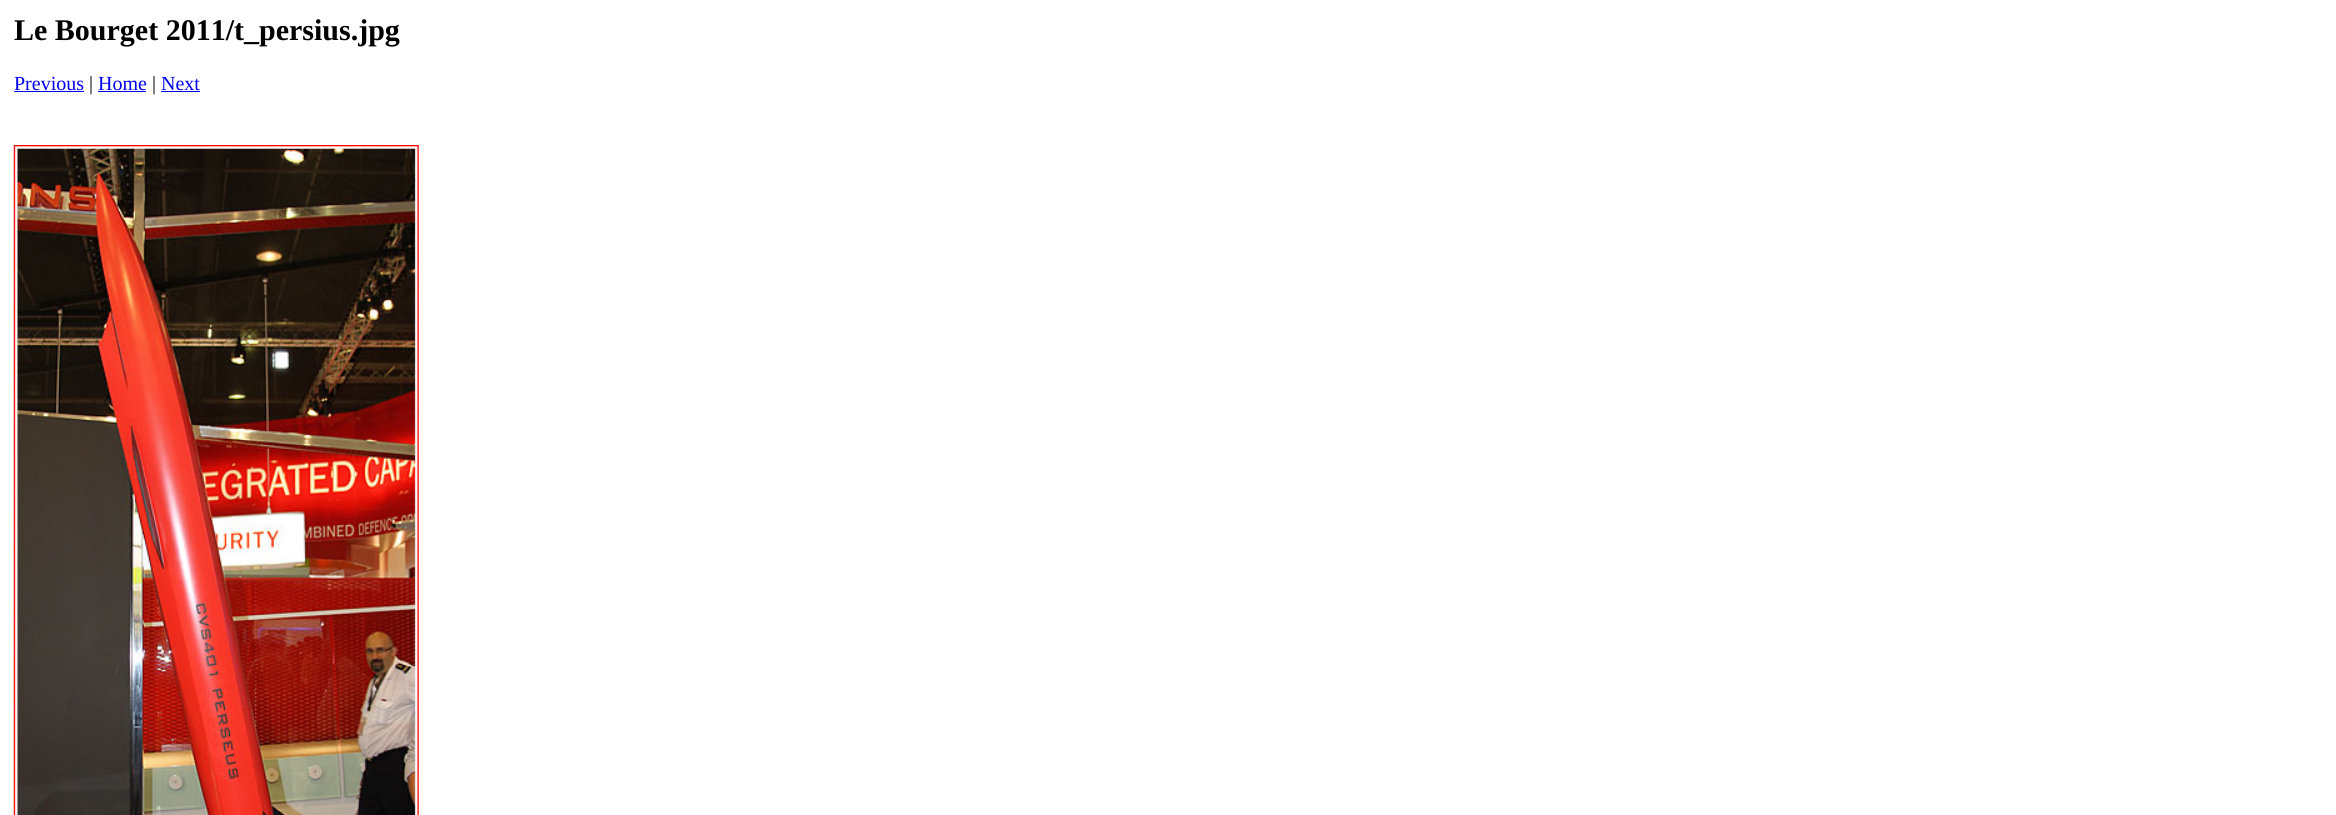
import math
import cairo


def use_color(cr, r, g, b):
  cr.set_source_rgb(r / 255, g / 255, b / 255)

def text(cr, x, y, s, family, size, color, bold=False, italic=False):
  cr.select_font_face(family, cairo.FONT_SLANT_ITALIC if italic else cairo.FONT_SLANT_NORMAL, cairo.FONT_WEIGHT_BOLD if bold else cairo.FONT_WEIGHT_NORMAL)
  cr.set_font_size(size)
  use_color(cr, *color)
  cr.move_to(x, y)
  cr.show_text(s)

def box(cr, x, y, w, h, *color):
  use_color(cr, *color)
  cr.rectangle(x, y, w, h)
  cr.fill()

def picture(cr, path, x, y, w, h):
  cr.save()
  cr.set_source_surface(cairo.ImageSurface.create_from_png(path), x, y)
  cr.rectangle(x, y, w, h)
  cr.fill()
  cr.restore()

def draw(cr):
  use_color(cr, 255, 255, 255)
  cr.paint()
  box(cr, 14, 91, 70, 1, 0, 0, 238)
  box(cr, 98, 91, 48, 1, 0, 0, 238)
  box(cr, 161, 91, 39, 1, 0, 0, 238)
  picture(cr, "img_01.png", 13, 145, 406, 670)
  text(cr, 14, 40, "Le Bourget 2011/t_persius.jpg", "Liberation Serif", 30, (0, 0, 0), bold=True)
  text(cr, 14, 90, "Previous", "Liberation Serif", 20, (0, 0, 238))
  text(cr, 89, 90, "|", "Liberation Serif", 20, (0, 0, 0))
  text(cr, 98, 90, "Home", "Liberation Serif", 20, (0, 0, 238))
  text(cr, 152, 90, "|", "Liberation Serif", 20, (0, 0, 0))
  text(cr, 161, 90, "Next", "Liberation Serif", 20, (0, 0, 238))


surface = cairo.ImageSurface(cairo.FORMAT_RGB24, 2336, 815)
cr = cairo.Context(surface)
options = cairo.FontOptions()
options.set_hint_metrics(cairo.HINT_METRICS_OFF)
options.set_hint_style(cairo.HINT_STYLE_NONE)
cr.set_font_options(options)
cr.set_miter_limit(4)
draw(cr)
surface.write_to_png("out.png")
